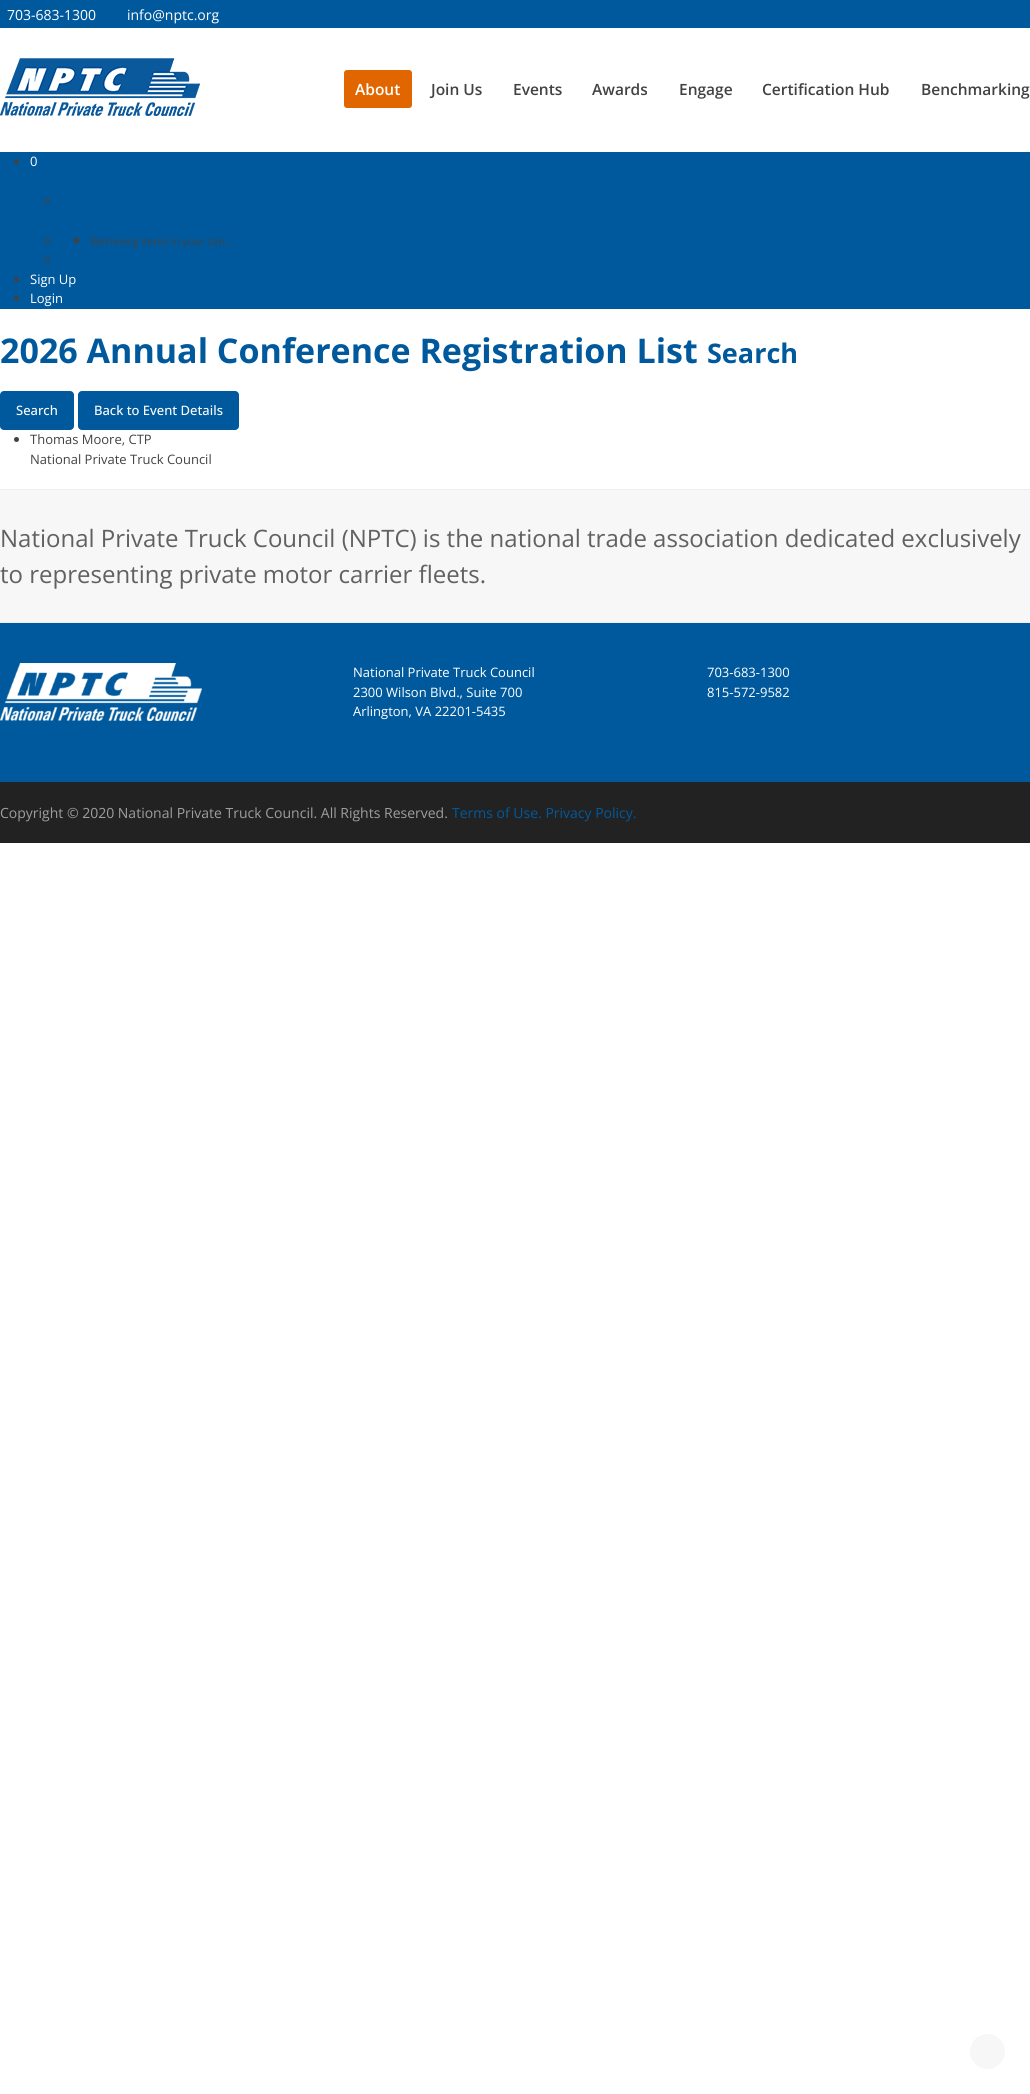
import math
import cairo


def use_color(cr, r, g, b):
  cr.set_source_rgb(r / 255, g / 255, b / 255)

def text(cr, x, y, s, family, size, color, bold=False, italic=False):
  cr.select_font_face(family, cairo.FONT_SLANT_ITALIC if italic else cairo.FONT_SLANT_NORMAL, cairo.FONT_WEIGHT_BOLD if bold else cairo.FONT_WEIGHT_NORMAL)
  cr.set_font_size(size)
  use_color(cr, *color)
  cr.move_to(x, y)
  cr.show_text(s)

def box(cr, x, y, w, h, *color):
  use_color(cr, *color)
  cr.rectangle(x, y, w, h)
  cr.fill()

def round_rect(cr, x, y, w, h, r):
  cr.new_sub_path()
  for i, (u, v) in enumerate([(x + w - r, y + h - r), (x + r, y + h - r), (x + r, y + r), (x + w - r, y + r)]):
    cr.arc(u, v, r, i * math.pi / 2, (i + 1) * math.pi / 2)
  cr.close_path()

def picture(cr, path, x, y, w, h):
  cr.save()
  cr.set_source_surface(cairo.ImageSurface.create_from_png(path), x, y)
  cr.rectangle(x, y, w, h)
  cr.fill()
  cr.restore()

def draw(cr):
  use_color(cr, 255, 255, 255)
  cr.paint()
  box(cr, 0, 0, 1030, 28, 0, 89, 156)
  picture(cr, "img_01.png", 0, 58, 200, 58)
  use_color(cr, 226, 102, 0)
  round_rect(cr, 344, 70, 68, 38, 3)
  cr.fill()
  box(cr, 0, 152, 1030, 157, 0, 89, 156)
  use_color(cr, 66, 66, 66)
  cr.arc(16.5, 161.5, 2.5, 0, 2 * math.pi)
  cr.fill()
  cr.arc(47, 201, 2.5, 0, 2 * math.pi)
  cr.set_line_width(1)
  cr.stroke()
  cr.arc(47, 241, 2.5, 0, 2 * math.pi)
  cr.stroke()
  box(cr, 74, 238, 5, 5, 66, 66, 66)
  cr.arc(47, 260, 2.5, 0, 2 * math.pi)
  cr.stroke()
  cr.arc(16.5, 279.5, 2.5, 0, 2 * math.pi)
  cr.fill()
  cr.arc(16.5, 298.5, 2.5, 0, 2 * math.pi)
  cr.fill()
  use_color(cr, 0, 89, 156)
  round_rect(cr, 0, 391, 74, 39, 4)
  cr.fill()
  round_rect(cr, 78, 391, 161, 39, 4)
  cr.fill()
  use_color(cr, 66, 66, 66)
  cr.arc(16.5, 439.5, 2.5, 0, 2 * math.pi)
  cr.fill()
  box(cr, 0, 490, 1030, 132, 247, 247, 247)
  box(cr, 0, 489, 1030, 1, 238, 238, 238)
  box(cr, 0, 622, 1030, 1, 238, 238, 238)
  box(cr, 0, 623, 1030, 159, 0, 89, 156)
  picture(cr, "img_02.png", 0, 663, 202, 58)
  box(cr, 0, 782, 1030, 61, 34, 34, 34)
  use_color(cr, 247, 247, 247)
  cr.arc(987.5, 2051.5, 17.5, 0, 2 * math.pi)
  cr.fill()
  text(cr, 7, 20, "703-683-1300", "Open Sans", 14, (255, 255, 255))
  text(cr, 127, 20, "info@nptc.org", "Open Sans", 14, (255, 255, 255))
  text(cr, 355, 95, "About", "Open Sans SemiBold", 15.5, (255, 255, 255))
  text(cr, 431, 95, "Join Us", "Open Sans SemiBold", 15.5, (66, 66, 66))
  text(cr, 513, 95, "Events", "Open Sans SemiBold", 15.5, (66, 66, 66))
  text(cr, 592, 95, "Awards", "Open Sans SemiBold", 15.5, (66, 66, 66))
  text(cr, 679, 95, "Engage", "Open Sans SemiBold", 15.5, (66, 66, 66))
  text(cr, 762, 95, "Certification Hub", "Open Sans SemiBold", 15.5, (66, 66, 66))
  text(cr, 921, 95, "Benchmarking", "Open Sans SemiBold", 15.5, (66, 66, 66))
  text(cr, 30, 166, "0", "Open Sans", 13, (255, 255, 255))
  text(cr, 90, 245, "Retrieving items in your cart...", "Open Sans", 10.4, (66, 66, 66))
  text(cr, 30, 284, "Sign Up", "Open Sans", 13, (255, 255, 255))
  text(cr, 30, 303, "Login", "Open Sans", 13, (255, 255, 255))
  text(cr, 0, 363, "2026 Annual Conference Registration List", "Open Sans", 34, (0, 89, 156), bold=True)
  text(cr, 707, 363, "Search", "Open Sans", 27, (0, 89, 156), bold=True)
  text(cr, 16, 415, "Search", "Open Sans Medium", 13, (255, 255, 255))
  text(cr, 94, 415, "Back to Event Details", "Open Sans Medium", 13, (255, 255, 255))
  text(cr, 30, 444, "Thomas Moore, CTP", "Open Sans", 13, (66, 66, 66))
  text(cr, 30, 464, "National Private Truck Council", "Open Sans", 13, (66, 66, 66))
  text(cr, 0, 547, "National Private Truck Council (NPTC) is the national trade association dedicated exclusively", "Open Sans", 24, (97, 97, 97))
  text(cr, 0, 583, "to representing private motor carrier fleets.", "Open Sans", 24, (97, 97, 97))
  text(cr, 353, 677, "National Private Truck Council", "Open Sans", 13, (255, 255, 255))
  text(cr, 353, 697, "2300 Wilson Blvd., Suite 700", "Open Sans", 13, (255, 255, 255))
  text(cr, 353, 716, "Arlington, VA 22201-5435", "Open Sans", 13, (255, 255, 255))
  text(cr, 707, 677, "703-683-1300", "Open Sans", 13, (255, 255, 255))
  text(cr, 707, 697, "815-572-9582", "Open Sans", 13, (255, 255, 255))
  text(cr, 0, 818, "Copyright © 2020 National Private Truck Council. All Rights Reserved.", "Open Sans", 14, (158, 158, 158))
  text(cr, 452, 818, "Terms of Use. Privacy Policy.", "Open Sans", 14, (0, 89, 156))


surface = cairo.ImageSurface(cairo.FORMAT_RGB24, 1030, 2094)
cr = cairo.Context(surface)
options = cairo.FontOptions()
options.set_hint_metrics(cairo.HINT_METRICS_OFF)
options.set_hint_style(cairo.HINT_STYLE_NONE)
cr.set_font_options(options)
cr.set_miter_limit(4)
draw(cr)
surface.write_to_png("out.png")
